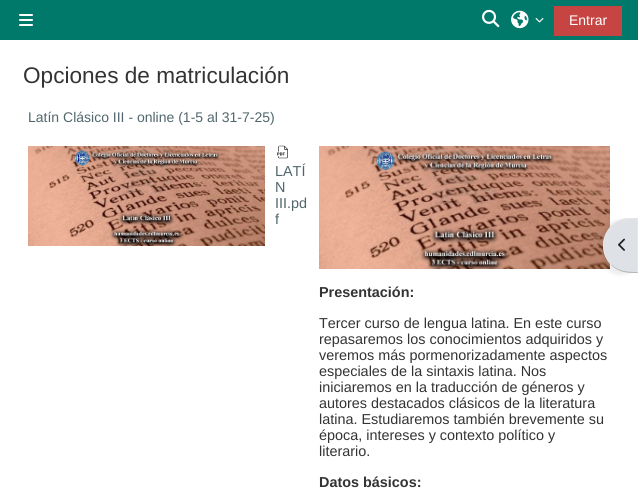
import math
import cairo


def use_color(cr, r, g, b):
  cr.set_source_rgb(r / 255, g / 255, b / 255)

def text(cr, x, y, s, family, size, color, bold=False, italic=False):
  cr.select_font_face(family, cairo.FONT_SLANT_ITALIC if italic else cairo.FONT_SLANT_NORMAL, cairo.FONT_WEIGHT_BOLD if bold else cairo.FONT_WEIGHT_NORMAL)
  cr.set_font_size(size)
  use_color(cr, *color)
  cr.move_to(x, y)
  cr.show_text(s)

def box(cr, x, y, w, h, *color):
  use_color(cr, *color)
  cr.rectangle(x, y, w, h)
  cr.fill()

def round_rect(cr, x, y, w, h, r):
  cr.new_sub_path()
  for i, (u, v) in enumerate([(x + w - r, y + h - r), (x + r, y + h - r), (x + r, y + r), (x + w - r, y + r)]):
    cr.arc(u, v, r, i * math.pi / 2, (i + 1) * math.pi / 2)
  cr.close_path()

def shadow(cr, x, y, w, h, r, blur, alpha):
  cr.push_group_with_content(cairo.CONTENT_ALPHA)
  cr.set_operator(cairo.OPERATOR_SOURCE)
  for i in range(15, -16, -2):
    e = blur * i / 6
    if min(w, h) + 2 * e > 0:
      cr.set_source_rgba(0, 0, 0, alpha * math.erfc((i - 1) / 8.5) / 2)
      round_rect(cr, x - e, y - e, w + 2 * e, h + 2 * e, max(0, min(r + e + blur * .6, min(w, h) / 2 + e)))
      cr.fill()
  cr.mask(cr.pop_group())

def picture(cr, path, x, y, w, h):
  cr.save()
  cr.set_source_surface(cairo.ImageSurface.create_from_png(path), x, y)
  cr.rectangle(x, y, w, h)
  cr.fill()
  cr.restore()

def draw(cr):
  use_color(cr, 255, 255, 255)
  cr.paint()
  box(cr, 0, 0, 638, 40, 0, 121, 107)
  picture(cr, "img_01.png", 19, 14, 14, 12)
  picture(cr, "img_02.png", 482, 9, 18, 19)
  picture(cr, "img_03.png", 511, 10, 18, 19)
  picture(cr, "img_04.png", 535, 18, 9, 5)
  box(cr, 554, 6, 68, 30, 198, 69, 67)
  picture(cr, "img_05.png", 28, 146, 237, 100)
  picture(cr, "img_06.png", 277, 145, 11, 14)
  picture(cr, "img_07.png", 319, 146, 291, 123)
  use_color(cr, 0, 0, 0)
  shadow(cr, 603, 220, 35, 55, 28, 2, 0.07)
  use_color(cr, 222, 226, 230)
  cr.new_path()
  cr.move_to(630.5, 218)
  cr.line_to(638, 218)
  cr.line_to(638, 273)
  cr.line_to(630.5, 273)
  cr.curve_to(615.5, 273, 603, 260.5, 603, 245.5)
  cr.curve_to(603, 230.5, 615.5, 218, 630.5, 218)
  cr.close_path()
  cr.fill()
  use_color(cr, 230, 230, 230)
  cr.new_path()
  cr.move_to(630, 218)
  cr.curve_to(622, 218, 615.5, 221, 611, 226)
  cr.line_to(611.5, 226.5)
  cr.curve_to(619, 219, 627, 219, 637, 219)
  cr.line_to(638, 218)
  cr.close_path()
  cr.fill()
  cr.new_path()
  cr.move_to(638, 218)
  cr.line_to(637, 219)
  cr.line_to(637, 272)
  cr.line_to(638, 273)
  cr.close_path()
  cr.fill()
  use_color(cr, 179, 179, 179)
  cr.new_path()
  cr.move_to(638, 273)
  cr.line_to(637, 272)
  cr.curve_to(627.5, 272, 618.5, 271.5, 611.5, 264.5)
  cr.line_to(611, 265)
  cr.curve_to(618.5, 272.5, 627.5, 273, 638, 273)
  cr.close_path()
  cr.fill()
  use_color(cr, 230, 230, 230)
  cr.new_path()
  cr.move_to(611, 226)
  cr.curve_to(601, 236, 600, 254, 611, 265)
  cr.line_to(611.5, 264.5)
  cr.curve_to(601, 254, 602, 236.5, 611.5, 226.5)
  cr.close_path()
  cr.fill()
  picture(cr, "img_08.png", 618, 238, 7, 13)
  text(cr, 569, 25, "Entrar", "Liberation Sans", 14, (255, 255, 255))
  text(cr, 23, 83, "Opciones de matriculación", "Liberation Sans", 22.6, (51, 51, 51))
  text(cr, 28, 122, "Latín Clásico III - online (1-5 al 31-7-25)", "Liberation Sans", 14, (81, 102, 108))
  text(cr, 275, 176, "LATÍ", "Liberation Sans", 14.4, (81, 102, 108))
  text(cr, 275, 192, "N", "Liberation Sans", 14.4, (81, 102, 108))
  text(cr, 275, 208, "III.pd", "Liberation Sans", 14.4, (81, 102, 108))
  text(cr, 275, 224, "f", "Liberation Sans", 14.4, (81, 102, 108))
  text(cr, 319, 297, "Presentación:", "Liberation Sans", 14.4, (51, 51, 51), bold=True)
  text(cr, 319, 328, "Tercer curso de lengua latina. En este curso", "Liberation Sans", 14.4, (51, 51, 51))
  text(cr, 319, 344, "repasaremos los conocimientos adquiridos y", "Liberation Sans", 14.4, (51, 51, 51))
  text(cr, 319, 360, "veremos más pormenorizadamente aspectos", "Liberation Sans", 14.4, (51, 51, 51))
  text(cr, 319, 376, "especiales de la sintaxis latina. Nos", "Liberation Sans", 14.4, (51, 51, 51))
  text(cr, 319, 392, "iniciaremos en la traducción de géneros y", "Liberation Sans", 14.4, (51, 51, 51))
  text(cr, 319, 408, "autores destacados clásicos de la literatura", "Liberation Sans", 14.4, (51, 51, 51))
  text(cr, 319, 424, "latina. Estudiaremos también brevemente su", "Liberation Sans", 14.4, (51, 51, 51))
  text(cr, 319, 440, "época, intereses y contexto político y", "Liberation Sans", 14.4, (51, 51, 51))
  text(cr, 319, 456, "literario.", "Liberation Sans", 14.4, (51, 51, 51))
  text(cr, 319, 487, "Datos básicos:", "Liberation Sans", 14.4, (51, 51, 51), bold=True)


surface = cairo.ImageSurface(cairo.FORMAT_RGB24, 638, 489)
cr = cairo.Context(surface)
options = cairo.FontOptions()
options.set_hint_metrics(cairo.HINT_METRICS_OFF)
options.set_hint_style(cairo.HINT_STYLE_NONE)
cr.set_font_options(options)
cr.set_miter_limit(4)
draw(cr)
surface.write_to_png("out.png")
